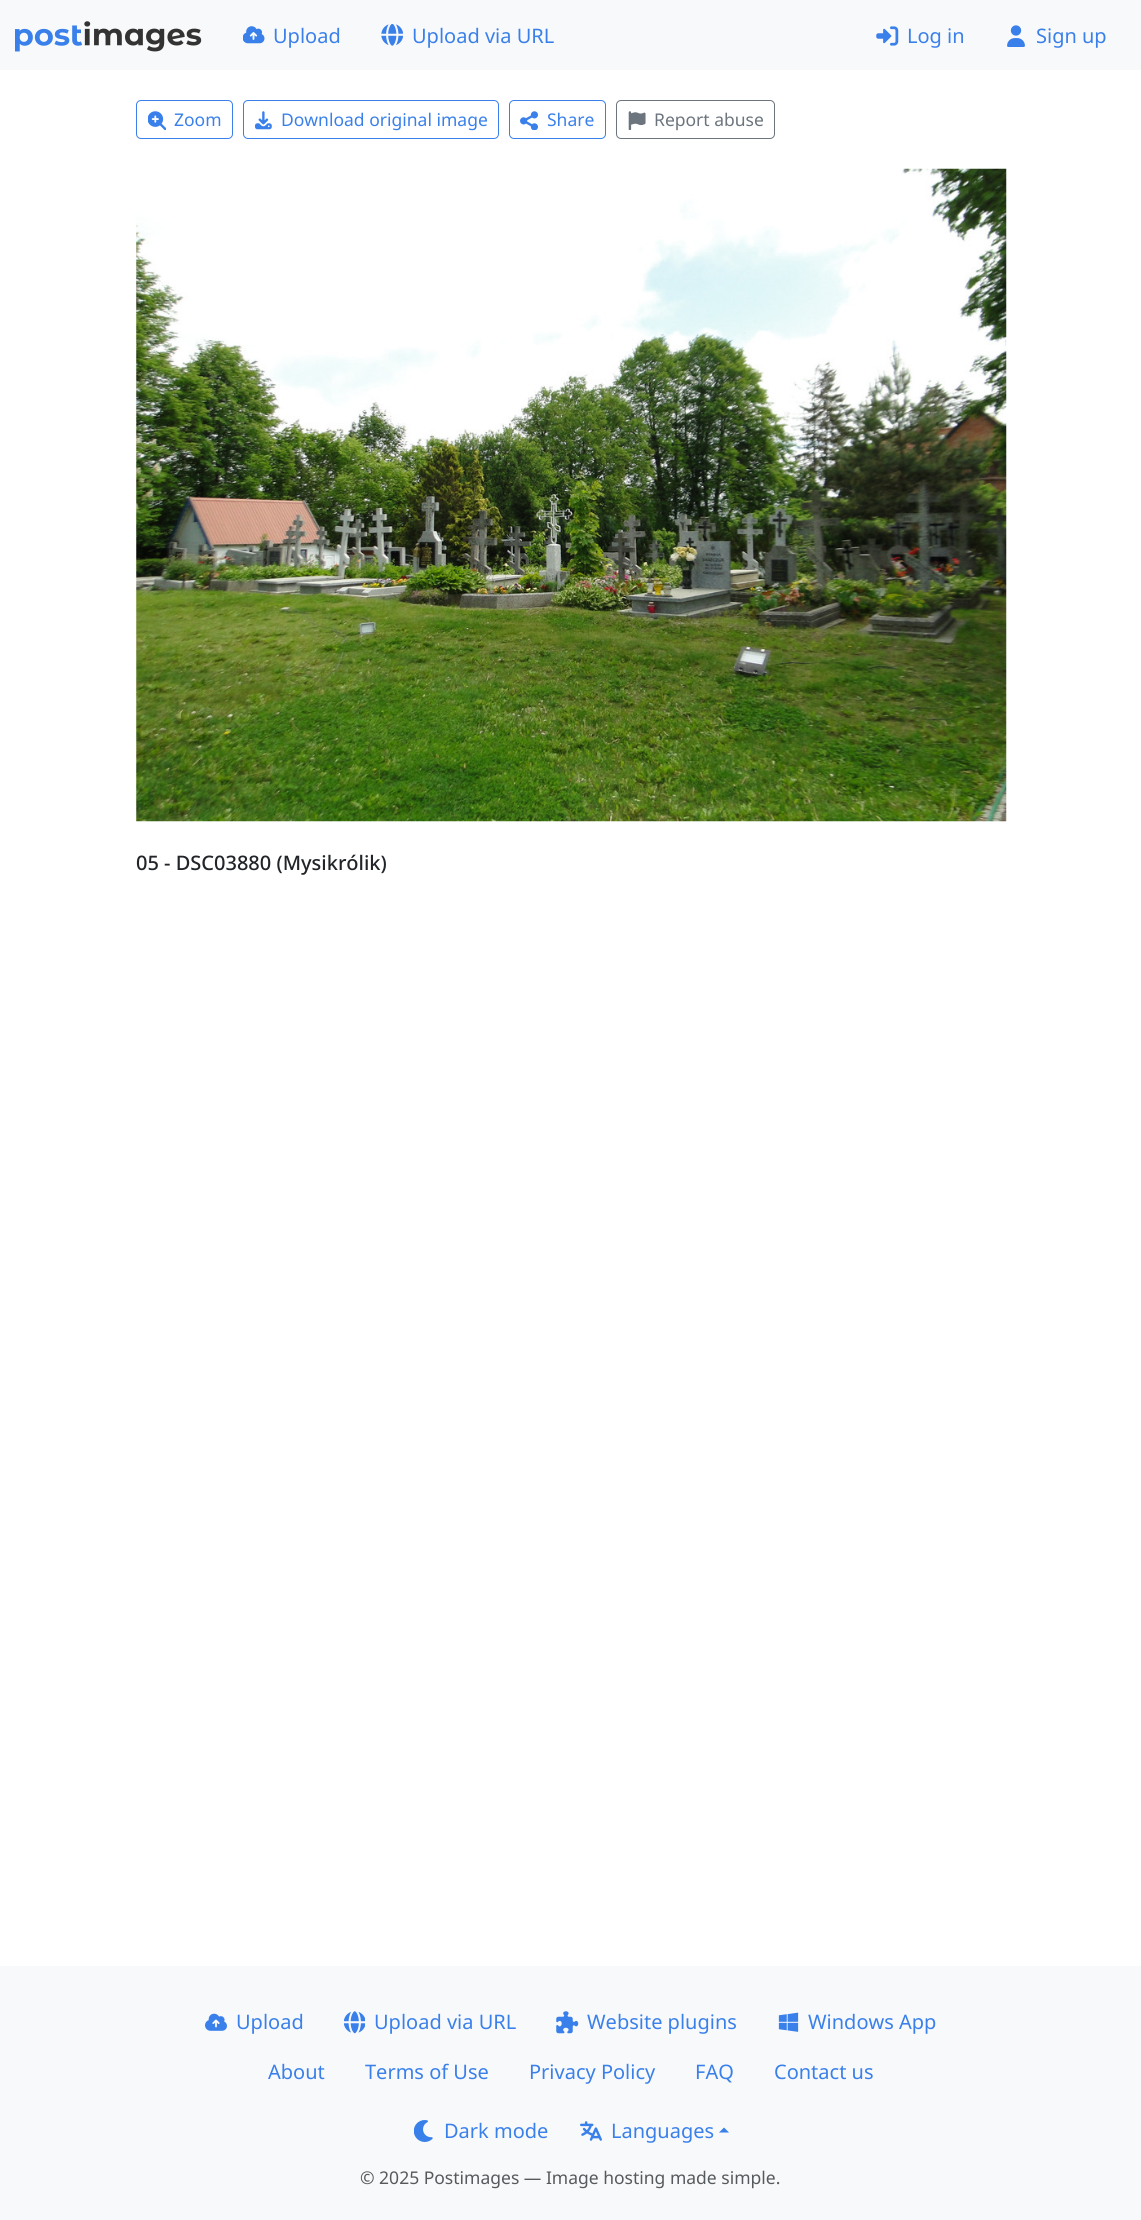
import math
import cairo


def use_color(cr, r, g, b):
  cr.set_source_rgb(r / 255, g / 255, b / 255)

def text(cr, x, y, s, family, size, color, bold=False, italic=False):
  cr.select_font_face(family, cairo.FONT_SLANT_ITALIC if italic else cairo.FONT_SLANT_NORMAL, cairo.FONT_WEIGHT_BOLD if bold else cairo.FONT_WEIGHT_NORMAL)
  cr.set_font_size(size)
  use_color(cr, *color)
  cr.move_to(x, y)
  cr.show_text(s)

def box(cr, x, y, w, h, *color):
  use_color(cr, *color)
  cr.rectangle(x, y, w, h)
  cr.fill()

def round_rect(cr, x, y, w, h, r):
  cr.new_sub_path()
  for i, (u, v) in enumerate([(x + w - r, y + h - r), (x + r, y + h - r), (x + r, y + r), (x + w - r, y + r)]):
    cr.arc(u, v, r, i * math.pi / 2, (i + 1) * math.pi / 2)
  cr.close_path()

def picture(cr, path, x, y, w, h):
  cr.save()
  cr.set_source_surface(cairo.ImageSurface.create_from_png(path), x, y)
  cr.rectangle(x, y, w, h)
  cr.fill()
  cr.restore()

def draw(cr):
  use_color(cr, 255, 255, 255)
  cr.paint()
  box(cr, 0, 0, 1141, 70, 248, 249, 250)
  picture(cr, "img_01.png", 15, 21, 187, 31)
  picture(cr, "img_02.png", 243, 26, 22, 18)
  picture(cr, "img_03.png", 381, 24, 22, 22)
  picture(cr, "img_04.png", 876, 26, 23, 20)
  picture(cr, "img_05.png", 1007, 25, 18, 22)
  round_rect(cr, 136.5, 100.5, 96, 38, 4.5)
  use_color(cr, 58, 128, 234)
  cr.set_line_width(1)
  cr.stroke()
  picture(cr, "img_06.png", 148, 111, 18, 19)
  round_rect(cr, 243.5, 100.5, 255, 38, 4.5)
  cr.stroke()
  picture(cr, "img_07.png", 254, 111, 18, 19)
  round_rect(cr, 509.5, 100.5, 96, 38, 4.5)
  cr.stroke()
  picture(cr, "img_08.png", 520, 111, 18, 19)
  round_rect(cr, 616.5, 100.5, 158, 38, 4.5)
  use_color(cr, 108, 117, 125)
  cr.stroke()
  picture(cr, "img_09.png", 628, 111, 18, 19)
  picture(cr, "img_10.png", 136, 168, 871, 654)
  box(cr, 0, 1966, 1141, 254, 248, 249, 250)
  picture(cr, "img_11.png", 205, 2013, 22, 18)
  picture(cr, "img_12.png", 344, 2011, 21, 23)
  picture(cr, "img_13.png", 556, 2011, 23, 23)
  picture(cr, "img_14.png", 778, 2012, 21, 20)
  picture(cr, "img_15.png", 414, 2120, 19, 22)
  picture(cr, "img_16.png", 580, 2121, 22, 20)
  use_color(cr, 58, 128, 234)
  cr.new_path()
  cr.move_to(729, 2132.5)
  cr.line_to(719, 2132.5)
  cr.line_to(724, 2127.5)
  cr.close_path()
  cr.fill()
  text(cr, 273, 43, "Upload", "Noto Sans", 20, (58, 128, 234))
  text(cr, 412, 43, "Upload via URL", "Noto Sans", 20, (58, 128, 234))
  text(cr, 907, 43, "Log in", "Noto Sans", 20, (58, 128, 234))
  text(cr, 1036, 43, "Sign up", "Noto Sans", 20, (58, 128, 234))
  text(cr, 174, 126, "Zoom", "Noto Sans", 17.5, (58, 128, 234))
  text(cr, 281, 126, "Download original image", "Noto Sans", 17.5, (58, 128, 234))
  text(cr, 547, 126, "Share", "Noto Sans", 17.5, (58, 128, 234))
  text(cr, 654, 126, "Report abuse", "Noto Sans", 17.5, (108, 117, 125))
  text(cr, 136, 870, "05 - DSC03880 (Mysikrólik)", "Noto Sans Medium", 20, (33, 37, 41))
  text(cr, 236, 2029, "Upload", "Noto Sans", 20, (58, 128, 234))
  text(cr, 374, 2029, "Upload via URL", "Noto Sans", 20, (58, 128, 234))
  text(cr, 587, 2029, "Website plugins", "Noto Sans", 20, (58, 128, 234))
  text(cr, 808, 2029, "Windows App", "Noto Sans", 20, (58, 128, 234))
  text(cr, 268, 2079, "About", "Noto Sans", 20, (58, 128, 234))
  text(cr, 365, 2079, "Terms of Use", "Noto Sans", 20, (58, 128, 234))
  text(cr, 529, 2079, "Privacy Policy", "Noto Sans", 20, (58, 128, 234))
  text(cr, 695, 2079, "FAQ", "Noto Sans", 20, (58, 128, 234))
  text(cr, 774, 2079, "Contact us", "Noto Sans", 20, (58, 128, 234))
  text(cr, 444, 2138, "Dark mode", "Noto Sans", 20, (58, 128, 234))
  text(cr, 611, 2138, "Languages", "Noto Sans", 20, (58, 128, 234))
  text(cr, 360, 2184, "© 2025 Postimages — Image hosting made simple.", "Noto Sans", 17.5, (87, 90, 93))


surface = cairo.ImageSurface(cairo.FORMAT_RGB24, 1141, 2220)
cr = cairo.Context(surface)
options = cairo.FontOptions()
options.set_hint_metrics(cairo.HINT_METRICS_OFF)
options.set_hint_style(cairo.HINT_STYLE_NONE)
cr.set_font_options(options)
cr.set_miter_limit(4)
draw(cr)
surface.write_to_png("out.png")
